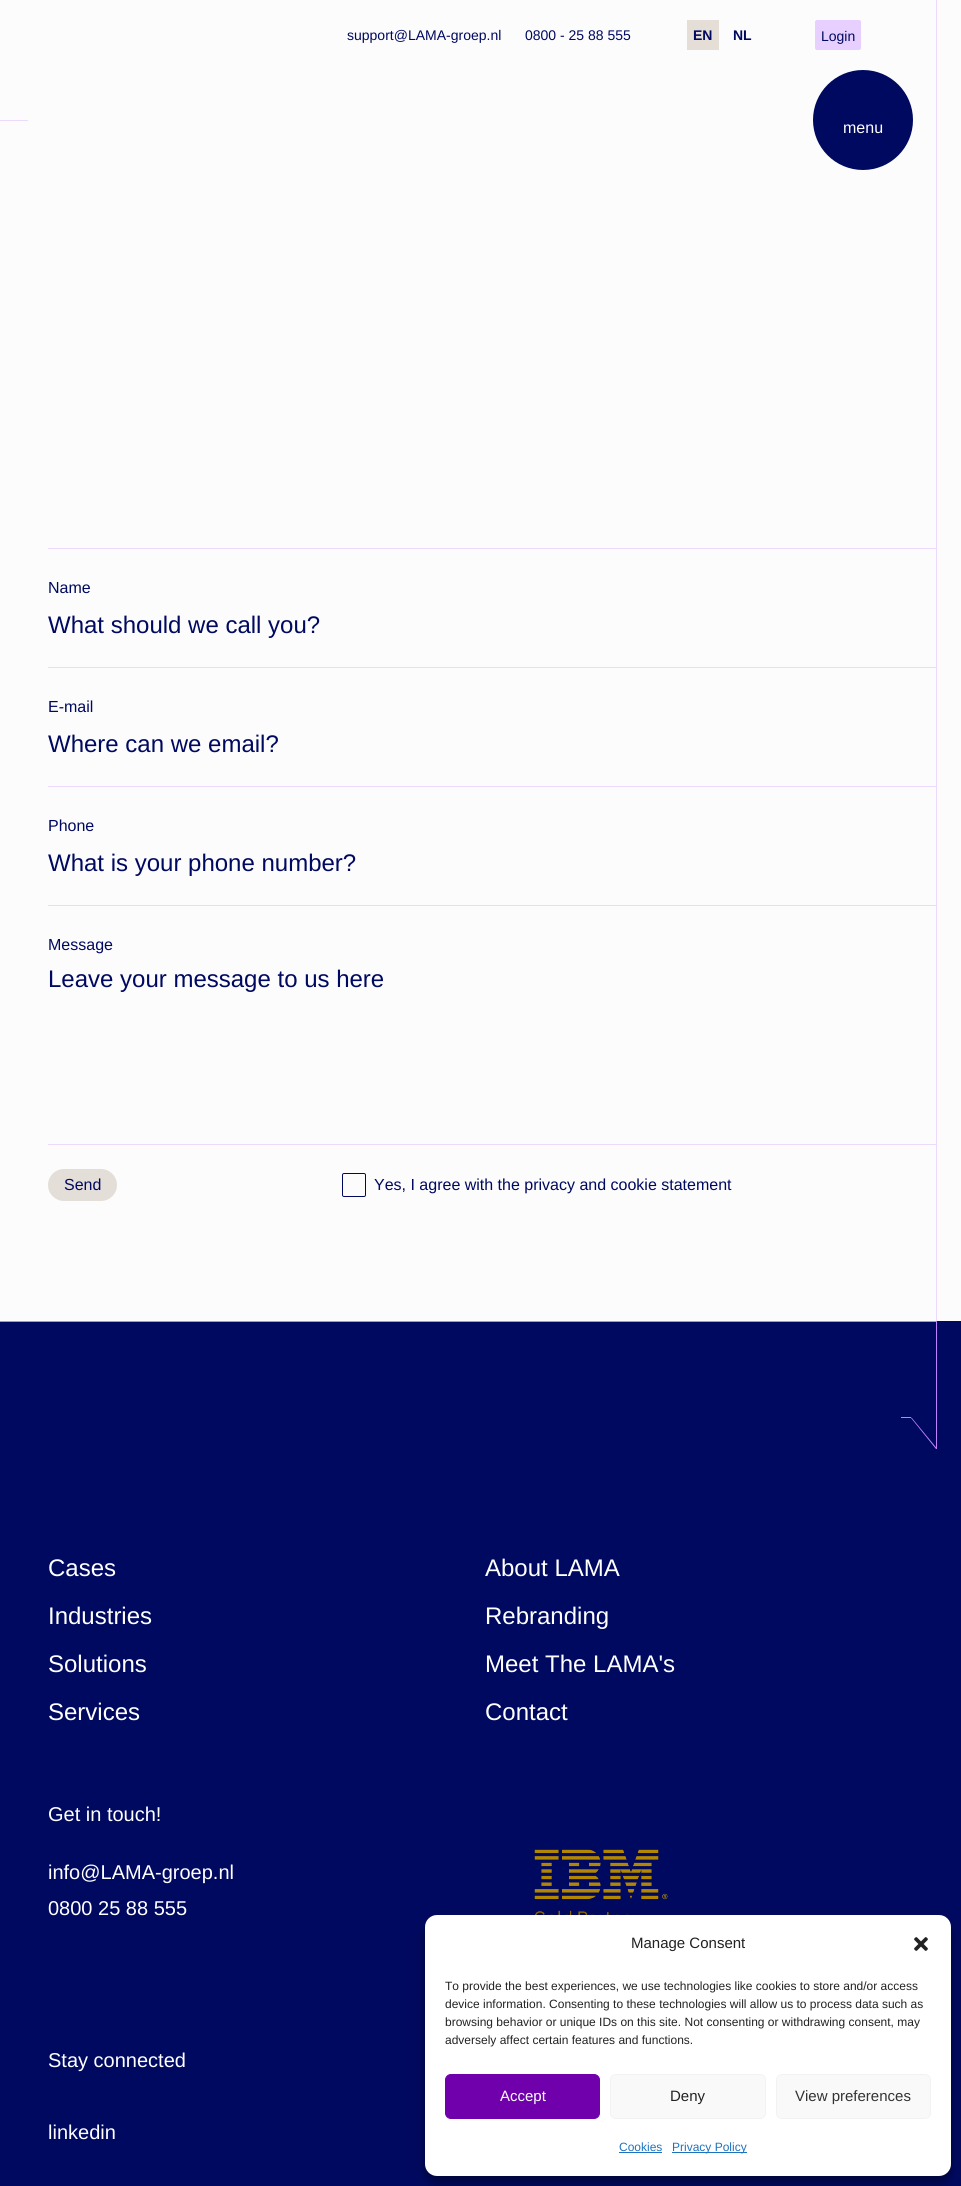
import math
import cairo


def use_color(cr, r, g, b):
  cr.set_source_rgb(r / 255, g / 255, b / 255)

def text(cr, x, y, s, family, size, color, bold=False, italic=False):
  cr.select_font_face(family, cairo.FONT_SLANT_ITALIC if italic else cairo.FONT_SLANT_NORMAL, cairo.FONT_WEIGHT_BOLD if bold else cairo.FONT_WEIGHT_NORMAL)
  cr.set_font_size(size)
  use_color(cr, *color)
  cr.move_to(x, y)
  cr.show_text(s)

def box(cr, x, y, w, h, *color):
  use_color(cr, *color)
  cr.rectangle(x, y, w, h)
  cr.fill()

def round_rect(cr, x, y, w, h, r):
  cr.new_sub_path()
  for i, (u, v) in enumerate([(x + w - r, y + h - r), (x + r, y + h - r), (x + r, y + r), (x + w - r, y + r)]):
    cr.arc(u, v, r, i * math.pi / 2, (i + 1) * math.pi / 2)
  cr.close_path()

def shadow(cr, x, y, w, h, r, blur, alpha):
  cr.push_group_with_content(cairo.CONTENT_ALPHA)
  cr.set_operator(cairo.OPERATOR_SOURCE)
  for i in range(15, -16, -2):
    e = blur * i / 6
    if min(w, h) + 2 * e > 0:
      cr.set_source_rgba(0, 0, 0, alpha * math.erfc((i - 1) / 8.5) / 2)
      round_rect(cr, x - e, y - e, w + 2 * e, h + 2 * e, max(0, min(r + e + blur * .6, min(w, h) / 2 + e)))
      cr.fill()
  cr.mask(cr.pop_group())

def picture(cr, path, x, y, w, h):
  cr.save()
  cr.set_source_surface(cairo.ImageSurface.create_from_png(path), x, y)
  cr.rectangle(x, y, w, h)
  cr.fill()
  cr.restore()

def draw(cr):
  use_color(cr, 252, 252, 252)
  cr.paint()
  box(cr, 687, 20, 32, 30, 228, 222, 215)
  use_color(cr, 231, 208, 255)
  round_rect(cr, 815, 20, 46, 30, 2)
  cr.fill()
  box(cr, 0, 120, 28, 1, 236, 218, 253)
  use_color(cr, 0, 9, 96)
  cr.arc(863, 120, 50, 0, 2 * math.pi)
  cr.fill()
  box(cr, 936, 0, 1, 1321, 236, 218, 253)
  box(cr, 48, 548, 889, 1, 236, 218, 253)
  box(cr, 48, 667, 889, 1, 236, 218, 253)
  box(cr, 48, 786, 889, 1, 236, 218, 253)
  box(cr, 48, 905, 889, 1, 236, 218, 253)
  box(cr, 48, 1144, 889, 1, 236, 218, 253)
  use_color(cr, 228, 222, 216)
  round_rect(cr, 48, 1169, 69, 32, 16)
  cr.fill()
  round_rect(cr, 342.5, 1173.5, 23, 23, 1.5)
  use_color(cr, 0, 9, 96)
  cr.set_line_width(1)
  cr.stroke()
  box(cr, 0, 1321, 961, 865, 0, 9, 96)
  box(cr, 936, 1321, 1, 128, 192, 128, 255)
  box(cr, 0, 1321, 937, 1, 192, 128, 255)
  box(cr, 901, 1417, 10, 1, 192, 128, 255)
  cr.new_path()
  cr.move_to(911, 1418)
  cr.line_to(911.5, 1417.5)
  cr.line_to(937, 1448.5)
  cr.line_to(936, 1449)
  cr.close_path()
  cr.fill()
  picture(cr, "img_01.png", 534, 1849, 134, 66)
  use_color(cr, 0, 0, 0)
  shadow(cr, 425, 1921, 526, 261, 12, 3, 0.23)
  shadow(cr, 425, 1925, 526, 261, 12, 10, 0.19)
  use_color(cr, 255, 255, 255)
  round_rect(cr, 425, 1915, 526, 261, 12)
  cr.fill()
  picture(cr, "img_02.png", 914, 1937, 14, 14)
  use_color(cr, 112, 0, 171)
  round_rect(cr, 445.5, 2074.5, 154, 44, 5.5)
  cr.fill_preserve()
  cr.stroke()
  use_color(cr, 249, 249, 249)
  round_rect(cr, 610.5, 2074.5, 155, 44, 5.5)
  cr.fill_preserve()
  use_color(cr, 242, 242, 242)
  cr.stroke()
  use_color(cr, 249, 249, 249)
  round_rect(cr, 776.5, 2074.5, 154, 44, 5.5)
  cr.fill_preserve()
  use_color(cr, 242, 242, 242)
  cr.stroke()
  box(cr, 619, 2152, 43, 1, 30, 115, 190)
  box(cr, 672, 2152, 75, 1, 30, 115, 190)
  text(cr, 347, 40, "support@LAMA-groep.nl", "Liberation Sans", 14, (0, 9, 96))
  text(cr, 525, 40, "0800 - 25 88 555", "Liberation Sans", 14, (0, 9, 96))
  text(cr, 693, 40, "EN", "Liberation Sans", 14, (0, 9, 96), bold=True)
  text(cr, 733, 40, "NL", "Liberation Sans", 14, (0, 9, 96), bold=True)
  text(cr, 821, 41, "Login", "Liberation Sans", 14, (0, 9, 96))
  text(cr, 843, 133, "menu", "Liberation Sans", 16, (255, 255, 255))
  text(cr, 48, 593, "Name", "Liberation Sans", 16, (0, 9, 96))
  text(cr, 48, 633, "What should we call you?", "Liberation Sans", 24, (0, 9, 96))
  text(cr, 48, 712, "E-mail", "Liberation Sans", 16, (0, 9, 96))
  text(cr, 48, 752, "Where can we email?", "Liberation Sans", 24, (0, 9, 96))
  text(cr, 48, 831, "Phone", "Liberation Sans", 16, (0, 9, 96))
  text(cr, 48, 871, "What is your phone number?", "Liberation Sans", 24, (0, 9, 96))
  text(cr, 48, 950, "Message", "Liberation Sans", 16, (0, 9, 96))
  text(cr, 48, 987, "Leave your message to us here", "Liberation Sans", 24, (0, 9, 96))
  text(cr, 64, 1190, "Send", "Liberation Sans", 16, (0, 9, 96))
  text(cr, 374, 1190, "Yes, I agree with the privacy and cookie statement", "Liberation Sans", 16, (0, 9, 96))
  text(cr, 48, 1576, "Cases", "Liberation Sans", 24, (255, 255, 255))
  text(cr, 48, 1624, "Industries", "Liberation Sans", 24, (255, 255, 255))
  text(cr, 48, 1672, "Solutions", "Liberation Sans", 24, (255, 255, 255))
  text(cr, 48, 1720, "Services", "Liberation Sans", 24, (255, 255, 255))
  text(cr, 485, 1576, "About LAMA", "Liberation Sans", 24, (255, 255, 255))
  text(cr, 485, 1624, "Rebranding", "Liberation Sans", 24, (255, 255, 255))
  text(cr, 485, 1672, "Meet The LAMA's", "Liberation Sans", 24, (255, 255, 255))
  text(cr, 485, 1720, "Contact", "Liberation Sans", 24, (255, 255, 255))
  text(cr, 48, 1821, "Get in touch!", "Liberation Sans", 20, (255, 255, 255))
  text(cr, 48, 1879, "info@LAMA-groep.nl", "Liberation Sans", 20, (255, 255, 255))
  text(cr, 48, 1915, "0800 25 88 555", "Liberation Sans", 20, (255, 255, 255))
  text(cr, 48, 2067, "Stay connected", "Liberation Sans", 20, (255, 255, 255))
  text(cr, 48, 2139, "linkedin", "Liberation Sans", 20, (255, 255, 255))
  text(cr, 631, 1948, "Manage Consent", "Liberation Sans", 15, (34, 34, 34))
  text(cr, 445, 1990, "To provide the best experiences, we use technologies like cookies to store and/or access", "Liberation Sans", 12, (34, 34, 34))
  text(cr, 445, 2008, "device information. Consenting to these technologies will allow us to process data such as", "Liberation Sans", 12, (34, 34, 34))
  text(cr, 445, 2026, "browsing behavior or unique IDs on this site. Not consenting or withdrawing consent, may", "Liberation Sans", 12, (34, 34, 34))
  text(cr, 445, 2044, "adversely affect certain features and functions.", "Liberation Sans", 12, (34, 34, 34))
  text(cr, 500, 2101, "Accept", "Liberation Sans", 15, (255, 255, 255))
  text(cr, 670, 2101, "Deny", "Liberation Sans", 15, (34, 34, 34))
  text(cr, 795, 2101, "View preferences", "Liberation Sans", 15, (51, 51, 51))
  text(cr, 619, 2151, "Cookies", "Liberation Sans", 12, (30, 115, 190))
  text(cr, 672, 2151, "Privacy Policy", "Liberation Sans", 12, (30, 115, 190))


surface = cairo.ImageSurface(cairo.FORMAT_RGB24, 961, 2186)
cr = cairo.Context(surface)
options = cairo.FontOptions()
options.set_hint_metrics(cairo.HINT_METRICS_OFF)
options.set_hint_style(cairo.HINT_STYLE_NONE)
cr.set_font_options(options)
cr.set_miter_limit(4)
draw(cr)
surface.write_to_png("out.png")
